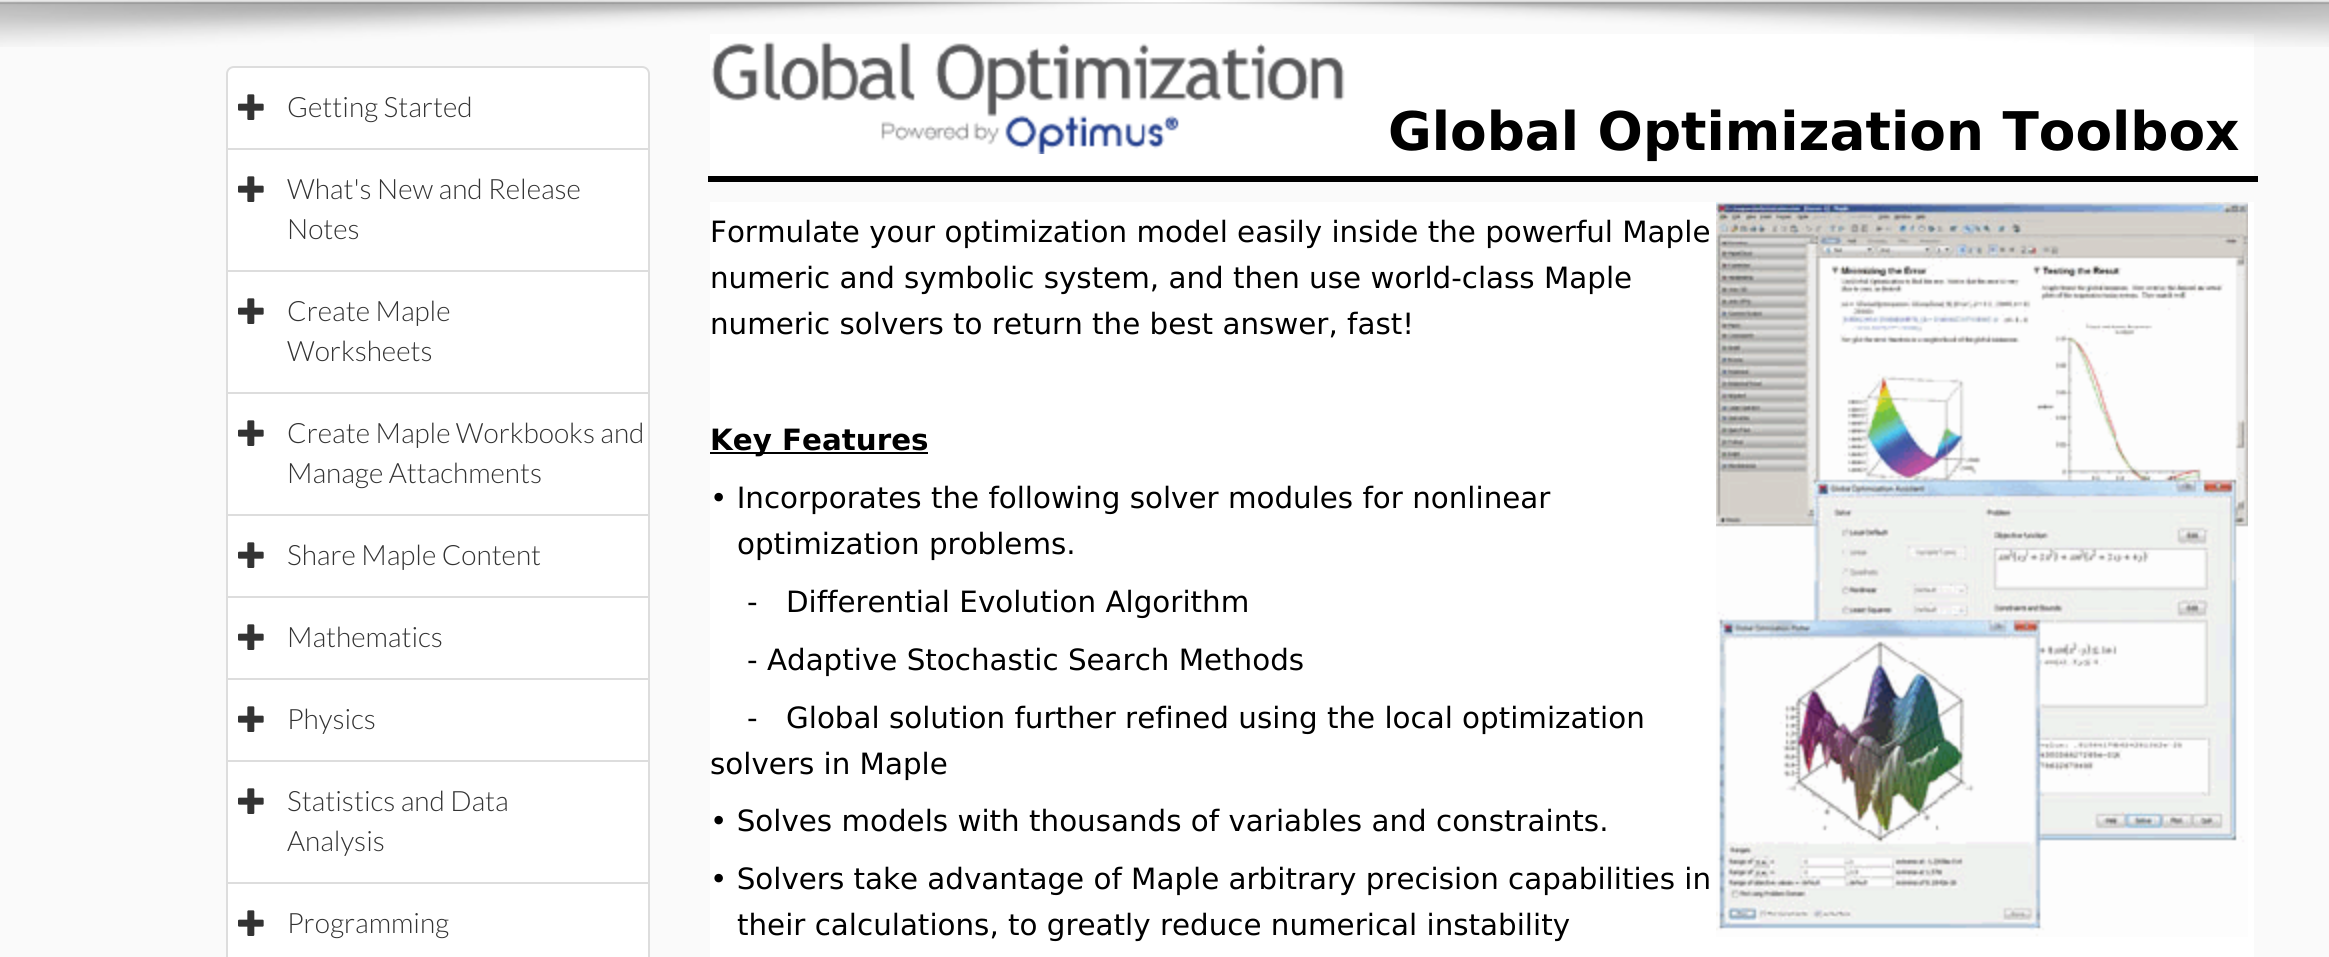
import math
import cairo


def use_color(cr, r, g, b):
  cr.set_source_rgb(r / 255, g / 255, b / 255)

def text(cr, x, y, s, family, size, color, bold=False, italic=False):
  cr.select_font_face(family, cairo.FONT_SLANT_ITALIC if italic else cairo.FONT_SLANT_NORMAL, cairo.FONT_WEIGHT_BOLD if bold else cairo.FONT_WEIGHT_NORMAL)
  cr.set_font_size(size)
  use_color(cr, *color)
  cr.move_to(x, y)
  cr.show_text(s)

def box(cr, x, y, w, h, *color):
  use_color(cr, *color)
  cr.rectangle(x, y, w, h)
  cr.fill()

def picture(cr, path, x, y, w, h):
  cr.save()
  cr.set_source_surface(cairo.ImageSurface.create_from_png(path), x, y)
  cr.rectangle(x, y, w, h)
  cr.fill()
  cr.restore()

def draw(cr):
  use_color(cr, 250, 250, 250)
  cr.paint()
  box(cr, 0, 0, 2329, 2, 255, 255, 255)
  box(cr, 0, 2, 2329, 2, 230, 230, 230)
  box(cr, 710, 34, 1544, 142, 255, 255, 255)
  picture(cr, "img_03.png", 711, 41, 634, 113)
  picture(cr, "img_01.png", 0, 0, 2329, 47)
  cr.new_path()
  cr.move_to(234, 67)
  cr.line_to(642, 67)
  cr.curve_to(646, 67, 649, 70, 649, 74)
  cr.line_to(649, 149)
  cr.line_to(227, 149)
  cr.line_to(227, 74)
  cr.curve_to(227, 70, 230, 67, 234, 67)
  cr.close_path()
  cr.fill_preserve()
  use_color(cr, 221, 221, 221)
  cr.stroke()
  picture(cr, "img_02.png", 238, 94, 26, 26)
  use_color(cr, 255, 255, 255)
  cr.rectangle(227, 149, 422, 122)
  cr.fill_preserve()
  use_color(cr, 221, 221, 221)
  cr.stroke()
  picture(cr, "img_02.png", 238, 176, 26, 26)
  use_color(cr, 255, 255, 255)
  cr.rectangle(227, 271, 422, 122)
  cr.fill_preserve()
  use_color(cr, 221, 221, 221)
  cr.stroke()
  picture(cr, "img_02.png", 238, 298, 26, 26)
  use_color(cr, 255, 255, 255)
  cr.rectangle(227, 393, 422, 122)
  cr.fill_preserve()
  use_color(cr, 221, 221, 221)
  cr.stroke()
  picture(cr, "img_02.png", 238, 420, 26, 26)
  use_color(cr, 255, 255, 255)
  cr.rectangle(227, 515, 422, 82)
  cr.fill_preserve()
  use_color(cr, 221, 221, 221)
  cr.stroke()
  picture(cr, "img_02.png", 238, 542, 26, 26)
  use_color(cr, 255, 255, 255)
  cr.rectangle(227, 597, 422, 82)
  cr.fill_preserve()
  use_color(cr, 221, 221, 221)
  cr.stroke()
  picture(cr, "img_02.png", 238, 624, 26, 26)
  use_color(cr, 255, 255, 255)
  cr.rectangle(227, 679, 422, 82)
  cr.fill_preserve()
  use_color(cr, 221, 221, 221)
  cr.stroke()
  picture(cr, "img_02.png", 238, 706, 26, 26)
  use_color(cr, 255, 255, 255)
  cr.rectangle(227, 761, 422, 122)
  cr.fill_preserve()
  use_color(cr, 221, 221, 221)
  cr.stroke()
  picture(cr, "img_02.png", 238, 788, 26, 26)
  use_color(cr, 255, 255, 255)
  cr.rectangle(227, 883, 422, 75)
  cr.fill_preserve()
  use_color(cr, 221, 221, 221)
  cr.stroke()
  picture(cr, "img_02.png", 238, 910, 26, 26)
  box(cr, 708, 176, 1550, 6, 0, 0, 0)
  box(cr, 710, 202, 1544, 755, 255, 255, 255)
  box(cr, 710, 452, 218, 2, 0, 0, 0)
  picture(cr, "img_04.png", 1716, 202, 532, 735)
  text(cr, 287, 117, "Getting Started", "Lato Light", 28, (51, 51, 51))
  text(cr, 287, 199, "What's New and Release", "Lato Light", 28, (51, 51, 51))
  text(cr, 287, 239, "Notes", "Lato Light", 28, (51, 51, 51))
  text(cr, 287, 321, "Create Maple", "Lato Light", 28, (51, 51, 51))
  text(cr, 287, 361, "Worksheets", "Lato Light", 28, (51, 51, 51))
  text(cr, 287, 443, "Create Maple Workbooks and", "Lato Light", 28, (51, 51, 51))
  text(cr, 287, 483, "Manage Attachments", "Lato Light", 28, (51, 51, 51))
  text(cr, 287, 565, "Share Maple Content", "Lato Light", 28, (51, 51, 51))
  text(cr, 287, 647, "Mathematics", "Lato Light", 28, (51, 51, 51))
  text(cr, 287, 729, "Physics", "Lato Light", 28, (51, 51, 51))
  text(cr, 287, 811, "Statistics and Data", "Lato Light", 28, (51, 51, 51))
  text(cr, 287, 851, "Analysis", "Lato Light", 28, (51, 51, 51))
  text(cr, 287, 933, "Programming", "Lato Light", 28, (51, 51, 51))
  text(cr, 1388, 150, "Global Optimization Toolbox", "DejaVu Sans", 53.3, (0, 0, 0), bold=True)
  text(cr, 710, 242, "Formulate your optimization model easily inside the powerful Maple", "DejaVu Sans", 29.35, (0, 0, 0))
  text(cr, 710, 288, "numeric and symbolic system, and then use world-class Maple", "DejaVu Sans", 29.35, (0, 0, 0))
  text(cr, 710, 334, "numeric solvers to return the best answer, fast!", "DejaVu Sans", 29.35, (0, 0, 0))
  text(cr, 710, 450, "Key Features", "DejaVu Sans", 29.35, (0, 0, 0), bold=True)
  text(cr, 710, 508, "• Incorporates the following solver modules for nonlinear", "DejaVu Sans", 29.35, (0, 0, 0))
  text(cr, 737, 554, "optimization problems.", "DejaVu Sans", 29.35, (0, 0, 0))
  text(cr, 747, 612, "-", "DejaVu Sans", 29.35, (0, 0, 0))
  text(cr, 786, 612, "Differential Evolution Algorithm", "DejaVu Sans", 29.35, (0, 0, 0))
  text(cr, 747, 670, "- Adaptive Stochastic Search Methods", "DejaVu Sans", 29.35, (0, 0, 0))
  text(cr, 747, 728, "-", "DejaVu Sans", 29.35, (0, 0, 0))
  text(cr, 786, 728, "Global solution further refined using the local optimization", "DejaVu Sans", 29.35, (0, 0, 0))
  text(cr, 710, 774, "solvers in Maple", "DejaVu Sans", 29.35, (0, 0, 0))
  text(cr, 710, 831, "• Solves models with thousands of variables and constraints.", "DejaVu Sans", 29.35, (0, 0, 0))
  text(cr, 710, 889, "• Solvers take advantage of Maple arbitrary precision capabilities in", "DejaVu Sans", 29.35, (0, 0, 0))
  text(cr, 737, 935, "their calculations, to greatly reduce numerical instability", "DejaVu Sans", 29.35, (0, 0, 0))


surface = cairo.ImageSurface(cairo.FORMAT_RGB24, 2329, 957)
cr = cairo.Context(surface)
options = cairo.FontOptions()
options.set_hint_metrics(cairo.HINT_METRICS_OFF)
options.set_hint_style(cairo.HINT_STYLE_NONE)
cr.set_font_options(options)
cr.set_miter_limit(4)
draw(cr)
surface.write_to_png("out.png")
